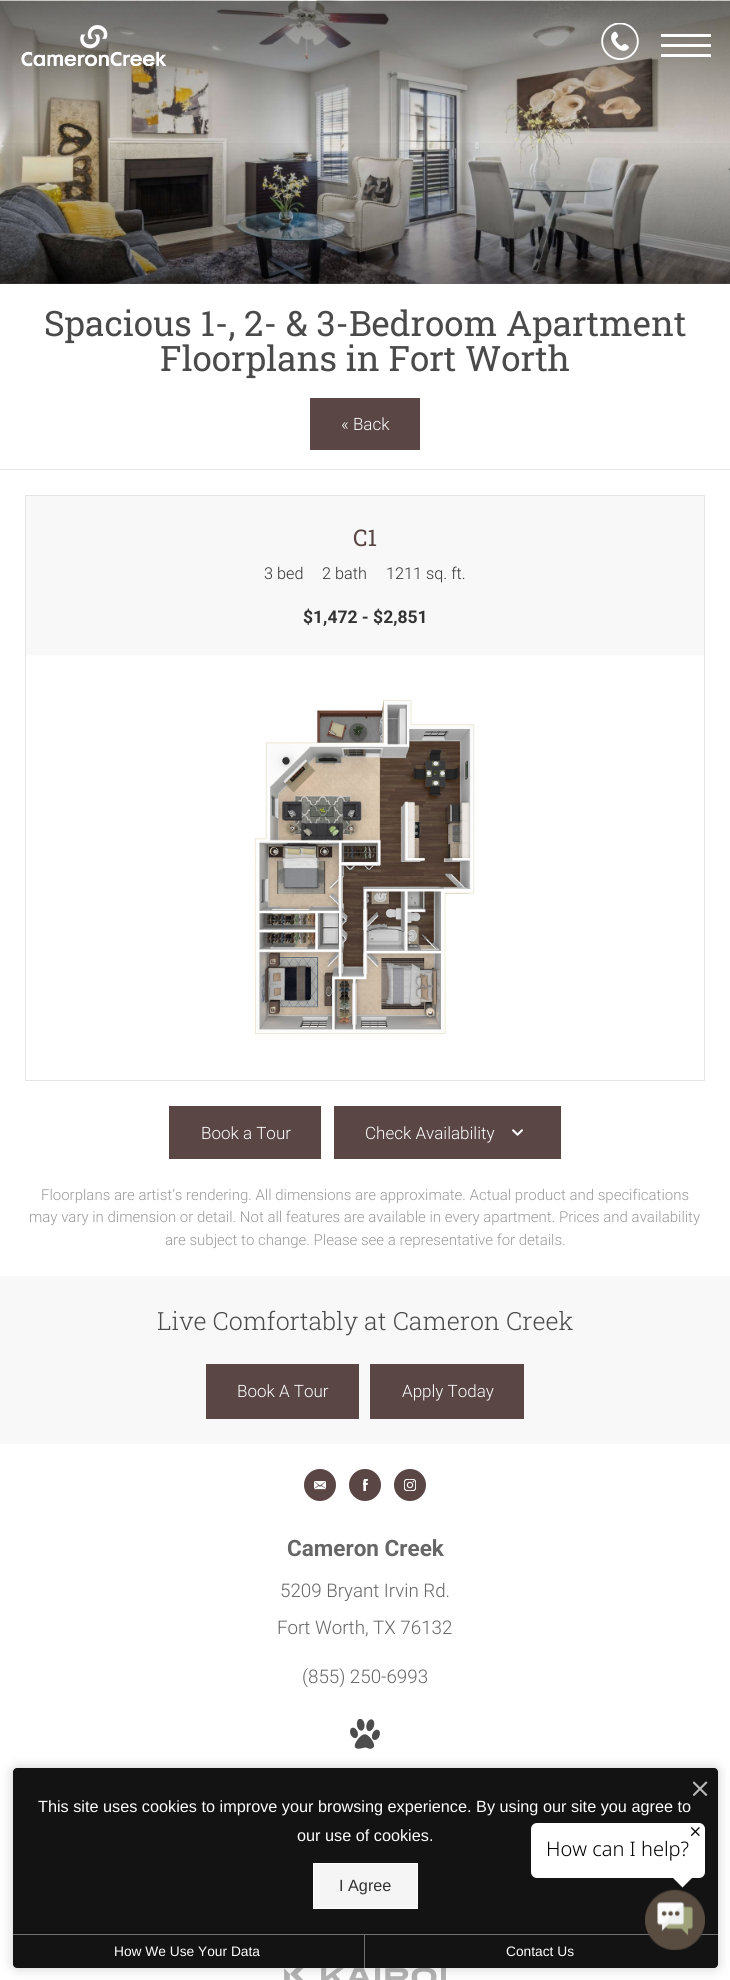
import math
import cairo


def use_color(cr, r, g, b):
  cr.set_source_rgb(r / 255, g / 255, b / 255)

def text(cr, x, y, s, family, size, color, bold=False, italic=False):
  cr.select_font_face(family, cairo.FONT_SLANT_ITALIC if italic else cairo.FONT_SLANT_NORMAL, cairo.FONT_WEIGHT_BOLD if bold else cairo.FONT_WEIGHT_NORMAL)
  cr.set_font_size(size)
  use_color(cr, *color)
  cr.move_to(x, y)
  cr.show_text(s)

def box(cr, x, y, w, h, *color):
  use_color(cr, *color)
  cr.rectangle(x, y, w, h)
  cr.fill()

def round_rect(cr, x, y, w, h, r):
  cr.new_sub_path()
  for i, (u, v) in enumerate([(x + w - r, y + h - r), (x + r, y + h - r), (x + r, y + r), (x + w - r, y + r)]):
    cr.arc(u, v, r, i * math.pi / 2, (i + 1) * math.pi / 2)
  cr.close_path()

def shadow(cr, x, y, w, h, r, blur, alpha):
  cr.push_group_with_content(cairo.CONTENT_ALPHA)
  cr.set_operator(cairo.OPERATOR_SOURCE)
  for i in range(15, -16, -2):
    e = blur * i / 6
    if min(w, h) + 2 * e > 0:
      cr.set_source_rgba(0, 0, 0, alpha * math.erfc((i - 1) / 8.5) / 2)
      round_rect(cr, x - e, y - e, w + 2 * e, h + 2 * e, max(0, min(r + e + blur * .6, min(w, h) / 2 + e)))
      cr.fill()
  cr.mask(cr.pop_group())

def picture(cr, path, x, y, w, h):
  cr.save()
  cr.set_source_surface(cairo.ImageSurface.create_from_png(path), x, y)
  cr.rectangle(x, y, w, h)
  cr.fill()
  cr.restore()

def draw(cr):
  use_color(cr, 255, 255, 255)
  cr.paint()
  picture(cr, "img_03.png", 0, 0, 730, 284)
  picture(cr, "img_04.png", 0, 1, 730, 283)
  picture(cr, "img_01.png", 21, 25, 145, 42)
  picture(cr, "img_02.png", 601, 23, 38, 37)
  box(cr, 661, 34, 50, 3, 255, 255, 255)
  box(cr, 661, 44, 50, 3, 255, 255, 255)
  box(cr, 661, 54, 50, 3, 255, 255, 255)
  box(cr, 0, 469, 730, 1, 229, 229, 229)
  gradient = cairo.LinearGradient(365, 137, 365, 284)
  gradient.add_color_stop_rgba(0, 0, 0, 0, 0)
  gradient.add_color_stop_rgba(1, 0, 0, 0, 0.5)
  cr.set_source(gradient)
  cr.rectangle(0, 143, 730, 141)
  cr.fill()
  box(cr, 310, 398, 110, 52, 89, 70, 69)
  cr.rectangle(25.5, 495.5, 679, 585)
  use_color(cr, 229, 229, 229)
  cr.set_line_width(1)
  cr.stroke()
  box(cr, 26, 496, 678, 159, 248, 248, 248)
  picture(cr, "img_05.png", 254, 700, 221, 334)
  box(cr, 169, 1106, 152, 53, 89, 70, 69)
  box(cr, 334, 1106, 227, 53, 89, 70, 69)
  picture(cr, "img_06.png", 512, 1129, 11, 7)
  box(cr, 0, 1276, 730, 168, 248, 248, 248)
  box(cr, 206, 1364, 153, 55, 89, 70, 69)
  box(cr, 370, 1364, 154, 55, 89, 70, 69)
  cr.arc(320, 1485, 16, 0, 2 * math.pi)
  cr.fill()
  picture(cr, "img_07.png", 314, 1481, 12, 9)
  cr.arc(365, 1485, 16, 0, 2 * math.pi)
  cr.fill()
  picture(cr, "img_08.png", 363, 1479, 5, 12)
  cr.arc(410, 1485, 16, 0, 2 * math.pi)
  cr.fill()
  picture(cr, "img_09.png", 404, 1479, 12, 12)
  picture(cr, "img_10.png", 350, 1719, 30, 30)
  picture(cr, "img_11.png", 284, 1968, 162, 12)
  use_color(cr, 0, 0, 0)
  shadow(cr, 13, 1768, 705, 200, 4, 6, 0.2)
  use_color(cr, 19, 19, 19)
  round_rect(cr, 13, 1768, 705, 200, 4)
  cr.fill()
  picture(cr, "img_12.png", 693, 1781, 15, 15)
  use_color(cr, 245, 245, 245)
  cr.rectangle(313.5, 1863.5, 104, 45)
  cr.fill_preserve()
  use_color(cr, 255, 255, 255)
  cr.stroke()
  box(cr, 13, 1934, 705, 1, 113, 113, 113)
  box(cr, 364, 1935, 1, 33, 113, 113, 113)
  use_color(cr, 255, 255, 255)
  round_rect(cr, 531, 1823, 174, 55, 6)
  cr.fill()
  picture(cr, "img_13.png", 690, 1827, 10, 9)
  cr.new_path()
  cr.move_to(672.5, 1877.5)
  cr.line_to(692.5, 1877.5)
  cr.line_to(682.5, 1887.5)
  cr.close_path()
  cr.fill()
  picture(cr, "img_14.png", 645, 1889, 60, 61)
  text(cr, 44, 336, "Spacious 1-, 2- & 3-Bedroom Apartment", "Roboto Slab", 35, (74, 74, 74))
  text(cr, 160, 371, "Floorplans in Fort Worth", "Roboto Slab", 35, (74, 74, 74))
  text(cr, 341, 430, "« Back", "Roboto Light", 17, (255, 255, 255))
  text(cr, 353, 546, "C1", "Roboto Slab", 23, (89, 70, 69))
  text(cr, 264, 579, "3 bed", "Roboto Light", 16.25, (51, 51, 51))
  text(cr, 322, 579, "2 bath", "Roboto Light", 16.25, (51, 51, 51))
  text(cr, 386, 579, "1211 sq. ft.", "Roboto Light", 16.25, (51, 51, 51))
  text(cr, 303, 623, "$1,472 - $2,851", "Roboto", 17.5, (51, 51, 51), bold=True)
  text(cr, 201, 1139, "Book a Tour", "Roboto Light", 17, (255, 255, 255))
  text(cr, 365, 1139, "Check Availability", "Roboto Light", 17, (255, 255, 255))
  text(cr, 41, 1200, "Floorplans are artist’s rendering. All dimensions are approximate. Actual product and specifications", "Roboto Light", 15, (153, 153, 153))
  text(cr, 29, 1222, "may vary in dimension or detail. Not all features are available in every apartment. Prices and availability", "Roboto Light", 15, (153, 153, 153))
  text(cr, 165, 1245, "are subject to change. Please see a representative for details.", "Roboto Light", 15, (153, 153, 153))
  text(cr, 157, 1330, "Live Comfortably at Cameron Creek", "Roboto Slab Light", 25, (74, 74, 74))
  text(cr, 237, 1397, "Book A Tour", "Roboto Light", 17, (255, 255, 255))
  text(cr, 402, 1397, "Apply Today", "Roboto Light", 17, (255, 255, 255))
  text(cr, 287, 1556, "Cameron Creek", "Roboto", 22.5, (102, 102, 102), bold=True)
  text(cr, 280, 1597, "5209 Bryant Irvin Rd.", "Roboto Light", 18.75, (102, 102, 102))
  text(cr, 277, 1634, "Fort Worth, TX 76132", "Roboto Light", 18.75, (102, 102, 102))
  text(cr, 302, 1683, "(855) 250-6993", "Roboto Light", 18.75, (102, 102, 102))
  text(cr, 38, 1812, "This site uses cookies to improve your browsing experience. By using our site you agree to", "Liberation Sans", 16.25, (255, 255, 255))
  text(cr, 297, 1841, "our use of cookies.", "Liberation Sans", 16.25, (255, 255, 255))
  text(cr, 339, 1891, "I Agree", "Liberation Sans", 16.25, (51, 51, 51))
  text(cr, 114, 1956, "How We Use Your Data", "Liberation Sans", 13.75, (255, 255, 255))
  text(cr, 506, 1956, "Contact Us", "Liberation Sans", 13.75, (255, 255, 255))
  text(cr, 546, 1856, "How can I help?", "Noto Sans Light", 20, (0, 0, 0))


surface = cairo.ImageSurface(cairo.FORMAT_RGB24, 730, 1980)
cr = cairo.Context(surface)
options = cairo.FontOptions()
options.set_hint_metrics(cairo.HINT_METRICS_OFF)
options.set_hint_style(cairo.HINT_STYLE_NONE)
cr.set_font_options(options)
cr.set_miter_limit(4)
draw(cr)
surface.write_to_png("out.png")
